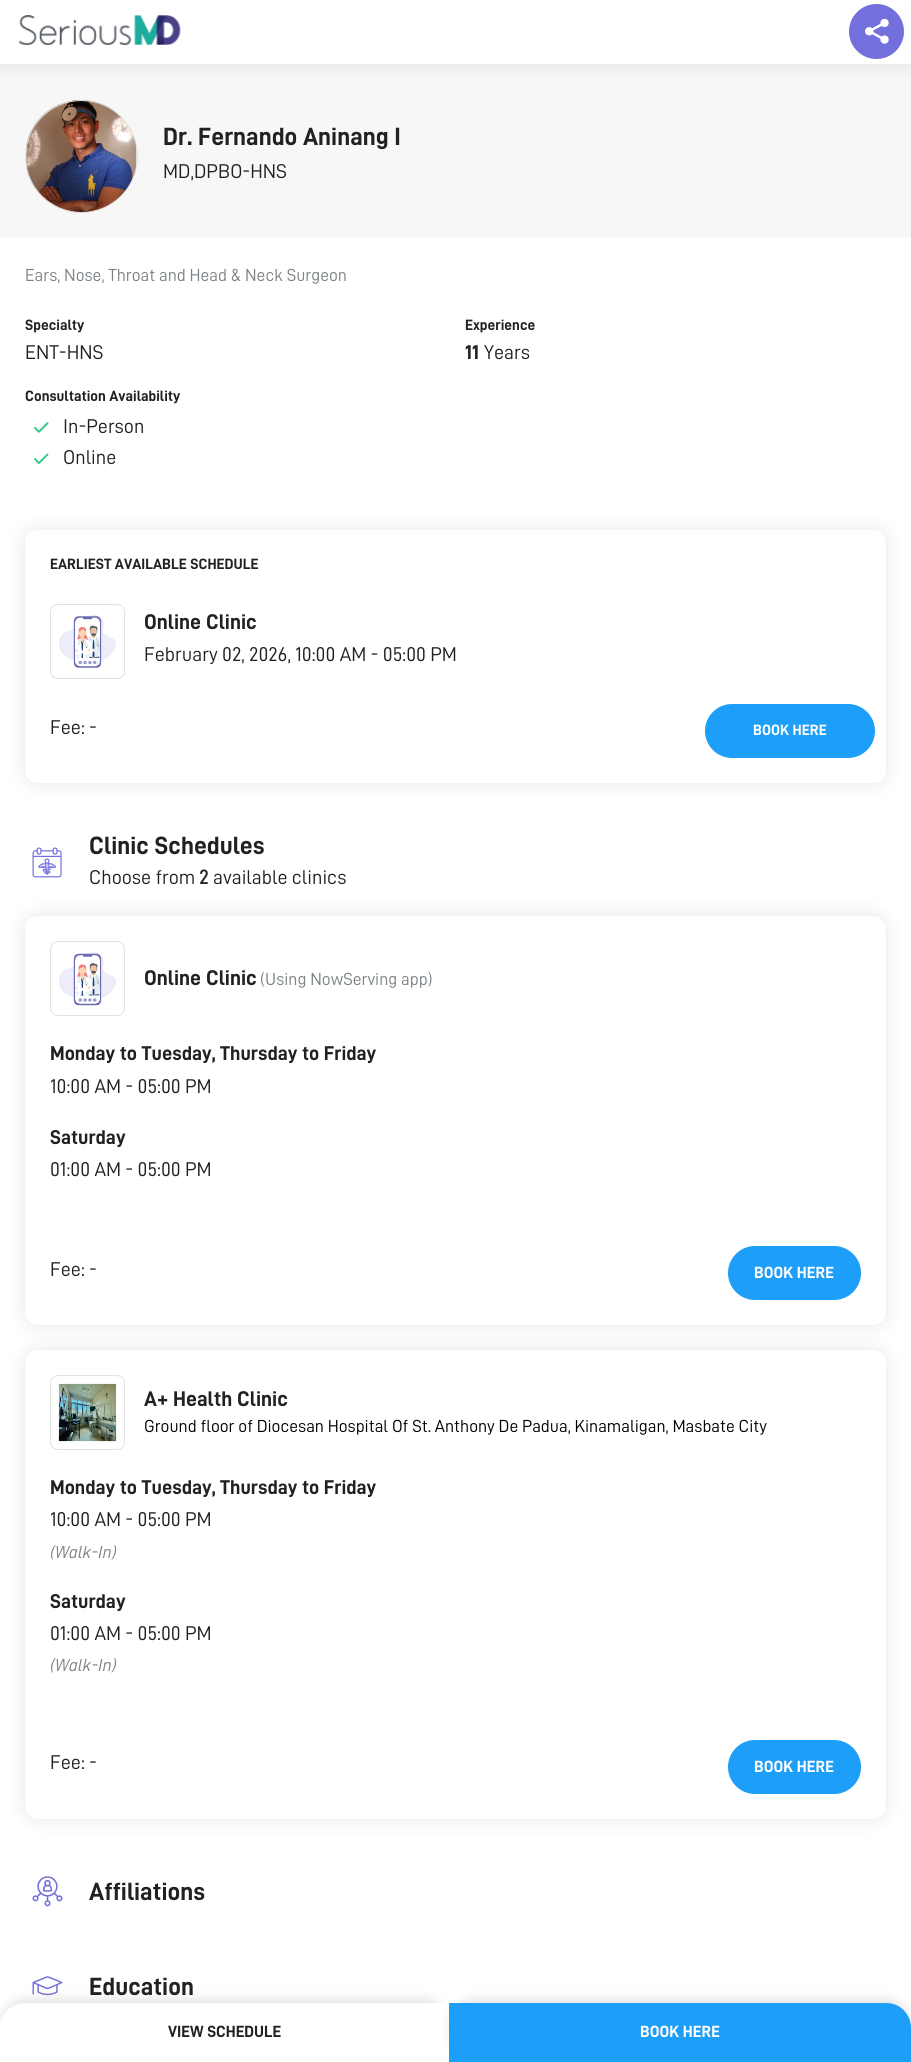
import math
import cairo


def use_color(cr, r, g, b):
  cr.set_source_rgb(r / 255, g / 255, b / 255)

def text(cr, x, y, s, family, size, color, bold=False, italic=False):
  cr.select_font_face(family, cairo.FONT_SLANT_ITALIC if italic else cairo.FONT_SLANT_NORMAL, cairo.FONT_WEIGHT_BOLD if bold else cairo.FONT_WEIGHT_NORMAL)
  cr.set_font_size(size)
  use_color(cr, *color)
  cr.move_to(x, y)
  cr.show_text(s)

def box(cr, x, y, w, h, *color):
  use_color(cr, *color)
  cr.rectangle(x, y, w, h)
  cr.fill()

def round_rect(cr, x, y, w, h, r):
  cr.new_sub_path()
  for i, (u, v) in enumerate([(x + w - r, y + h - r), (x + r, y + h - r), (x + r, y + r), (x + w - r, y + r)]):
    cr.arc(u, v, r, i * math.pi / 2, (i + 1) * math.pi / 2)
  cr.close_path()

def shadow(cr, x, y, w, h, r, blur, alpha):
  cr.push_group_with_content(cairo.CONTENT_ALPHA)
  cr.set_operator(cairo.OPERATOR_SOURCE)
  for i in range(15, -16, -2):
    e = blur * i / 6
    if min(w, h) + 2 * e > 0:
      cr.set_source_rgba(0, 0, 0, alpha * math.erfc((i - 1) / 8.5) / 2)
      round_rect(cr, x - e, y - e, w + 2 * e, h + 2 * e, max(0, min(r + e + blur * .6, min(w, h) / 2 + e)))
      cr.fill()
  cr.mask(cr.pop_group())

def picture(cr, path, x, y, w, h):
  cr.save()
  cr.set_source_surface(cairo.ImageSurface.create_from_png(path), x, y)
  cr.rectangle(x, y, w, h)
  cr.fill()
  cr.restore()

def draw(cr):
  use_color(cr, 248, 247, 247)
  cr.paint()
  use_color(cr, 0, 0, 0)
  shadow(cr, 0, 0, 911, 64, 0, 9.5, 0.1)
  box(cr, 0, 0, 911, 64, 255, 255, 255)
  picture(cr, "img_01.png", 18, 15, 163, 30)
  use_color(cr, 115, 111, 220)
  cr.arc(876.5, 31.5, 27.5, 0, 2 * math.pi)
  cr.fill()
  picture(cr, "img_02.png", 865, 19, 24, 25)
  picture(cr, "img_03.png", 26, 100, 111, 113)
  cr.arc(81.5, 156.5, 56, 0, 2 * math.pi)
  use_color(cr, 225, 225, 225)
  cr.set_line_width(1)
  cr.stroke()
  box(cr, 0, 238, 911, 1790, 255, 255, 255)
  picture(cr, "img_04.png", 34, 422, 15, 11)
  picture(cr, "img_05.png", 34, 453, 15, 11)
  use_color(cr, 0, 0, 0)
  shadow(cr, 25, 530, 861, 253, 13, 9.5, 0.1)
  use_color(cr, 255, 255, 255)
  round_rect(cr, 25, 530, 861, 253, 13)
  cr.fill()
  round_rect(cr, 50.5, 604.5, 74, 74, 7.5)
  use_color(cr, 225, 225, 225)
  cr.stroke()
  picture(cr, "img_06.png", 59, 614, 57, 54)
  use_color(cr, 28, 158, 249)
  round_rect(cr, 705, 704, 170, 54, 27)
  cr.fill()
  picture(cr, "img_07.png", 32, 847, 30, 31)
  use_color(cr, 0, 0, 0)
  shadow(cr, 25, 916, 861, 409, 13, 9.5, 0.1)
  use_color(cr, 255, 255, 255)
  round_rect(cr, 25, 916, 861, 409, 13)
  cr.fill()
  round_rect(cr, 50.5, 941.5, 74, 74, 7.5)
  use_color(cr, 225, 225, 225)
  cr.stroke()
  picture(cr, "img_08.png", 59, 952, 57, 54)
  use_color(cr, 28, 158, 249)
  round_rect(cr, 728, 1246, 133, 54, 27)
  cr.fill()
  use_color(cr, 0, 0, 0)
  shadow(cr, 25, 1350, 861, 469, 13, 9.5, 0.1)
  use_color(cr, 255, 255, 255)
  round_rect(cr, 25, 1350, 861, 469, 13)
  cr.fill()
  round_rect(cr, 50.5, 1375.5, 74, 74, 7.5)
  use_color(cr, 225, 225, 225)
  cr.stroke()
  picture(cr, "img_09.png", 58, 1383, 59, 59)
  use_color(cr, 28, 158, 249)
  round_rect(cr, 728, 1740, 133, 54, 27)
  cr.fill()
  picture(cr, "img_10.png", 32, 1876, 31, 31)
  picture(cr, "img_11.png", 32, 1976, 31, 20)
  use_color(cr, 0, 0, 0)
  shadow(cr, 0, 1998, 449, 60, 25, 5, 0.1)
  use_color(cr, 255, 255, 255)
  cr.new_path()
  cr.move_to(25, 2003)
  cr.line_to(449, 2003)
  cr.line_to(449, 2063)
  cr.line_to(0, 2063)
  cr.line_to(0, 2028)
  cr.curve_to(0, 2014, 11, 2003, 25, 2003)
  cr.close_path()
  cr.fill()
  use_color(cr, 0, 0, 0)
  shadow(cr, 449, 1998, 462, 60, 25, 5, 0.1)
  use_color(cr, 28, 158, 249)
  cr.new_path()
  cr.move_to(449, 2003)
  cr.line_to(886, 2003)
  cr.curve_to(900, 2003, 911, 2014, 911, 2028)
  cr.line_to(911, 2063)
  cr.line_to(449, 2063)
  cr.close_path()
  cr.fill()
  text(cr, 163, 145, "Dr. Fernando Aninang I", "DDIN", 25, (33, 33, 33), bold=True)
  text(cr, 163, 178, "MD,DPBO-HNS", "DDIN", 20, (33, 33, 33))
  text(cr, 25, 281, "Ears, Nose, Throat and Head & Neck Surgeon", "DDIN", 17.5, (123, 129, 133))
  text(cr, 25, 330, "Specialty", "DDIN", 15, (33, 33, 33), bold=True)
  text(cr, 25, 359, "ENT-HNS", "DDIN", 20, (33, 33, 33))
  text(cr, 465, 330, "Experience", "DDIN", 15, (33, 33, 33), bold=True)
  text(cr, 465, 359, "11", "DDIN", 20, (33, 33, 33), bold=True)
  text(cr, 484, 359, "Years", "DDIN", 20, (33, 33, 33))
  text(cr, 25, 401, "Consultation Availability", "DDIN", 15, (33, 33, 33), bold=True)
  text(cr, 63, 433, "In-Person", "DDIN", 20, (33, 33, 33))
  text(cr, 63, 464, "Online", "DDIN", 20, (33, 33, 33))
  text(cr, 50, 569, "EARLIEST AVAILABLE SCHEDULE", "DDIN", 15, (33, 33, 33), bold=True)
  text(cr, 144, 629, "Online Clinic", "DDIN", 21.25, (33, 33, 33), bold=True)
  text(cr, 144, 661, "February 02, 2026, 10:00 AM - 05:00 PM", "DDIN", 20, (33, 33, 33))
  text(cr, 50, 734, "Fee: -", "DDIN", 20, (33, 33, 33))
  text(cr, 753, 735, "BOOK HERE", "DDIN", 15, (255, 255, 255), bold=True)
  text(cr, 89, 854, "Clinic Schedules", "DDIN", 25, (33, 33, 33), bold=True)
  text(cr, 89, 884, "Choose from", "DDIN", 20, (33, 33, 33))
  text(cr, 199, 884, "2", "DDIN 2", 20, (33, 33, 33), bold=True)
  text(cr, 213, 884, "available clinics", "DDIN", 20, (33, 33, 33))
  text(cr, 144, 985, "Online Clinic", "DDIN", 21.25, (33, 33, 33), bold=True)
  text(cr, 260, 985, "(Using NowServing app)", "DDIN", 17.5, (123, 129, 133))
  text(cr, 50, 1060, "Monday to Tuesday, Thursday to Friday", "DDIN", 20, (33, 33, 33), bold=True)
  text(cr, 50, 1093, "10:00 AM - 05:00 PM", "DDIN", 20, (33, 33, 33))
  text(cr, 50, 1144, "Saturday", "DDIN", 20, (33, 33, 33), bold=True)
  text(cr, 50, 1176, "01:00 AM - 05:00 PM", "DDIN", 20, (33, 33, 33))
  text(cr, 50, 1276, "Fee: -", "DDIN", 20, (33, 33, 33))
  text(cr, 754, 1278, "BOOK HERE", "DDIN", 16.25, (255, 255, 255), bold=True)
  text(cr, 144, 1406, "A+ Health Clinic", "DDIN", 21.25, (33, 33, 33), bold=True)
  text(cr, 144, 1432, "Ground floor of Diocesan Hospital Of St. Anthony De Padua, Kinamaligan, Masbate City", "DDIN", 17.5, (0, 0, 0))
  text(cr, 50, 1494, "Monday to Tuesday, Thursday to Friday", "DDIN", 20, (33, 33, 33), bold=True)
  text(cr, 50, 1526, "10:00 AM - 05:00 PM", "DDIN", 20, (33, 33, 33))
  text(cr, 50, 1558, "(Walk-In)", "DDIN", 17.5, (123, 129, 133), italic=True)
  text(cr, 50, 1608, "Saturday", "DDIN", 20, (33, 33, 33), bold=True)
  text(cr, 50, 1640, "01:00 AM - 05:00 PM", "DDIN", 20, (33, 33, 33))
  text(cr, 50, 1671, "(Walk-In)", "DDIN", 17.5, (123, 129, 133), italic=True)
  text(cr, 50, 1769, "Fee: -", "DDIN", 20, (33, 33, 33))
  text(cr, 754, 1772, "BOOK HERE", "DDIN", 16.25, (255, 255, 255), bold=True)
  text(cr, 89, 1900, "Affiliations", "DDIN", 25, (33, 33, 33), bold=True)
  text(cr, 89, 1995, "Education", "DDIN", 25, (33, 33, 33), bold=True)
  text(cr, 168, 2037, "VIEW SCHEDULE", "DDIN", 16.25, (33, 33, 33), bold=True)
  text(cr, 640, 2037, "BOOK HERE", "DDIN", 16.25, (255, 255, 255), bold=True)


surface = cairo.ImageSurface(cairo.FORMAT_RGB24, 911, 2062)
cr = cairo.Context(surface)
options = cairo.FontOptions()
options.set_hint_metrics(cairo.HINT_METRICS_OFF)
options.set_hint_style(cairo.HINT_STYLE_NONE)
cr.set_font_options(options)
cr.set_miter_limit(4)
draw(cr)
surface.write_to_png("out.png")
